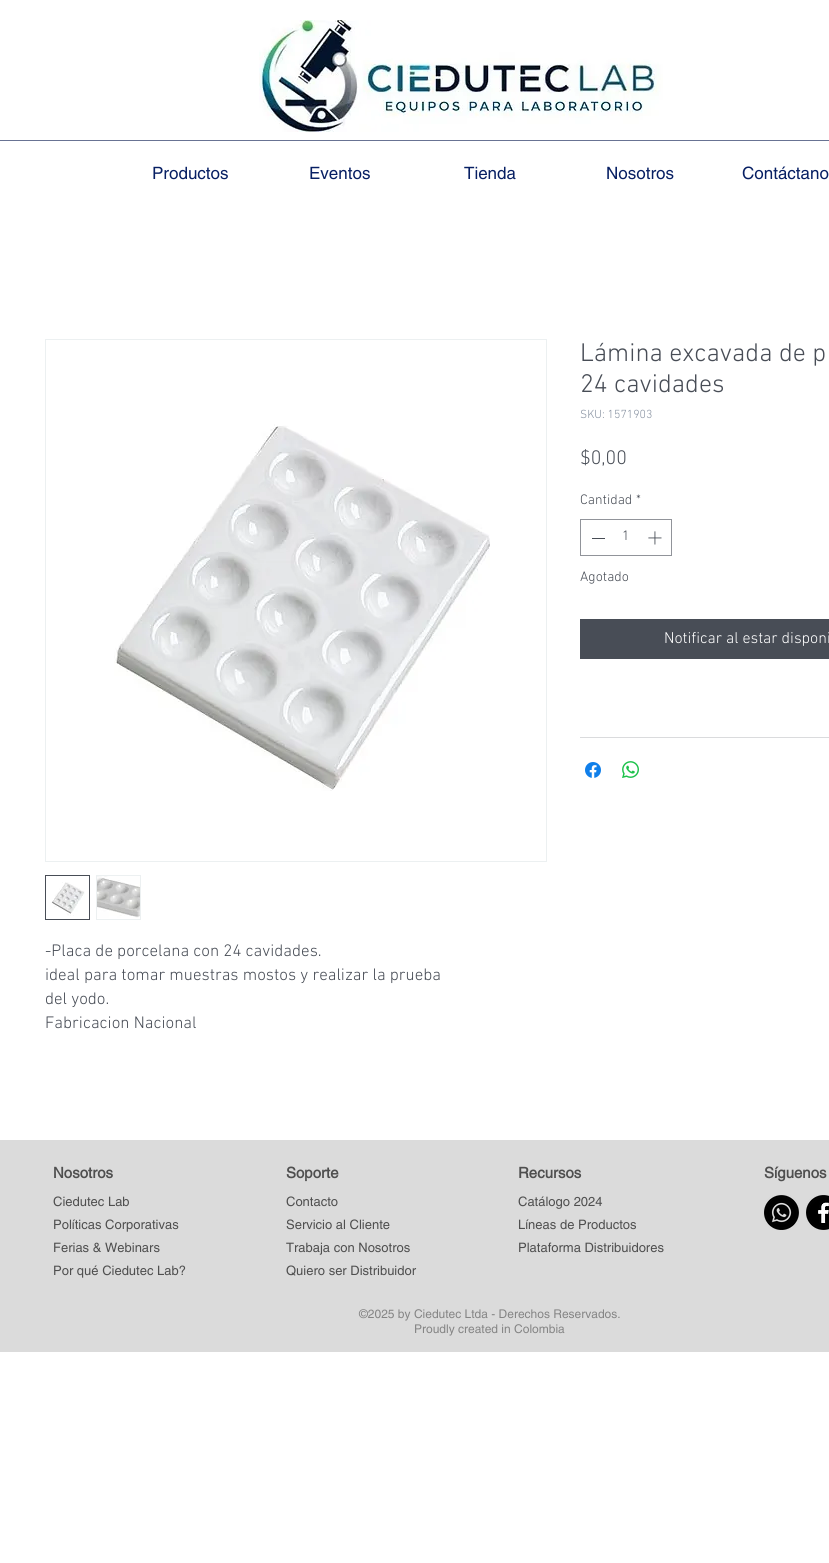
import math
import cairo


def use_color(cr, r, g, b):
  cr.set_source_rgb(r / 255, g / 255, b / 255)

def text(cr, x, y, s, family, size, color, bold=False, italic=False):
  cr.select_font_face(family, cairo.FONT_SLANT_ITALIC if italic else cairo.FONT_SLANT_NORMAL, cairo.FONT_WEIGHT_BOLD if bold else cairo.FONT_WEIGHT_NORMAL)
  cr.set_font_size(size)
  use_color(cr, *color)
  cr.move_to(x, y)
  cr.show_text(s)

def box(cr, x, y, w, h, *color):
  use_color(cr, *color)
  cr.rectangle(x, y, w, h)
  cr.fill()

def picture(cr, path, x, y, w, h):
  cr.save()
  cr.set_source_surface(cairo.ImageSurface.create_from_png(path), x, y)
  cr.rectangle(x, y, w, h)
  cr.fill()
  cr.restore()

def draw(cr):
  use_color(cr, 255, 255, 255)
  cr.paint()
  picture(cr, "img_01.png", 259, 20, 404, 112)
  box(cr, 0, 140, 829, 1, 104, 115, 147)
  cr.rectangle(580.5, 519.5, 91, 36)
  use_color(cr, 145, 148, 154)
  cr.set_line_width(1)
  cr.stroke()
  box(cr, 592, 538, 13, 1, 72, 77, 86)
  picture(cr, "img_02.png", 648, 531, 14, 14)
  box(cr, 580, 619, 249, 40, 72, 77, 86)
  box(cr, 580, 737, 249, 1, 218, 219, 221)
  picture(cr, "img_03.png", 585, 762, 16, 16)
  picture(cr, "img_04.png", 622, 761, 17, 17)
  cr.rectangle(45.5, 339.5, 501, 522)
  use_color(cr, 236, 240, 241)
  cr.stroke()
  picture(cr, "img_05.png", 114, 424, 376, 367)
  cr.rectangle(45.5, 875.5, 44, 44)
  use_color(cr, 72, 77, 86)
  cr.stroke()
  picture(cr, "img_06.png", 51, 882, 34, 34)
  cr.rectangle(96.5, 875.5, 44, 44)
  use_color(cr, 236, 240, 241)
  cr.stroke()
  picture(cr, "img_07.png", 97, 876, 43, 42)
  box(cr, 0, 1140, 829, 212, 219, 219, 219)
  picture(cr, "img_08.png", 764, 1195, 35, 35)
  picture(cr, "img_09.png", 806, 1195, 23, 35)
  text(cr, 152, 179, "Productos", "helvetica", 17, (7, 31, 99))
  text(cr, 309, 179, "Eventos", "helvetica", 17, (7, 31, 99))
  text(cr, 464, 179, "Tienda", "helvetica", 17, (7, 31, 99))
  text(cr, 606, 179, "Nosotros", "helvetica", 17, (7, 31, 99))
  text(cr, 742, 179, "Contáctano", "helvetica", 17, (7, 31, 99))
  text(cr, 580, 361, "Lámina excavada de p", "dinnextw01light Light", 26, (72, 77, 86))
  text(cr, 580, 392, "24 cavidades", "dinnextw01light Light", 26, (72, 77, 86))
  text(cr, 580, 418, "SKU: 1571903", "dinnextw01light Light", 12, (136, 146, 161))
  text(cr, 580, 464, "$0,00", "dinnextw01light Light", 20, (72, 77, 86))
  text(cr, 580, 504, "Cantidad", "dinnextw01light Light", 14, (72, 77, 86))
  text(cr, 636, 504, "*", "dinnextw01light Light", 14, (72, 77, 86))
  text(cr, 622, 540, "1", "dinnextw01light Light", 14, (72, 77, 86))
  text(cr, 580, 581, "Agotado", "dinnextw01light Light", 14, (72, 77, 86))
  text(cr, 664, 643, "Notificar al estar disponi", "dinnextw01light Light", 16, (255, 255, 255))
  text(cr, 45, 956, "-Placa de porcelana con 24 cavidades.", "dinnextw01light Light", 17, (72, 77, 86))
  text(cr, 45, 980, "ideal para tomar muestras mostos y realizar la prueba", "dinnextw01light Light", 17, (72, 77, 86))
  text(cr, 45, 1004, "del yodo.", "dinnextw01light Light", 17, (72, 77, 86))
  text(cr, 45, 1028, "Fabricacion Nacional", "dinnextw01light Light", 17, (72, 77, 86))
  text(cr, 53, 1178, "Nosotros", "helvetica", 15, (79, 79, 79), bold=True)
  text(cr, 286, 1178, "Soporte", "helvetica", 15, (79, 79, 79), bold=True)
  text(cr, 518, 1178, "Recursos", "helvetica", 15, (79, 79, 79), bold=True)
  text(cr, 764, 1178, "Síguenos", "helvetica", 15, (79, 79, 79), bold=True)
  text(cr, 53, 1206, "Ciedutec Lab", "helvetica", 13, (79, 79, 79))
  text(cr, 286, 1206, "Contacto", "helvetica", 13, (79, 79, 79))
  text(cr, 518, 1206, "Catálogo 2024", "helvetica", 13, (79, 79, 79))
  text(cr, 53, 1229, "Políticas Corporativas", "helvetica", 13, (79, 79, 79))
  text(cr, 286, 1229, "Servicio al Cliente", "helvetica", 13, (79, 79, 79))
  text(cr, 518, 1229, "Líneas de Productos", "helvetica", 13, (79, 79, 79))
  text(cr, 53, 1252, "Ferias & Webinars", "helvetica", 13, (79, 79, 79))
  text(cr, 286, 1252, "Trabaja con Nosotros", "helvetica", 13, (79, 79, 79))
  text(cr, 518, 1252, "Plataforma Distribuidores", "helvetica", 13, (79, 79, 79))
  text(cr, 53, 1275, "Por qué Ciedutec Lab?", "helvetica", 13, (79, 79, 79))
  text(cr, 286, 1275, "Quiero ser Distribuidor", "helvetica", 13, (79, 79, 79))
  text(cr, 359, 1318, "©2025 by Ciedutec Ltda - Derechos Reservados.", "helvetica", 12, (133, 133, 133))
  text(cr, 414, 1333, "Proudly created in Colombia", "helvetica", 12, (133, 133, 133))


surface = cairo.ImageSurface(cairo.FORMAT_RGB24, 829, 1563)
cr = cairo.Context(surface)
options = cairo.FontOptions()
options.set_hint_metrics(cairo.HINT_METRICS_OFF)
options.set_hint_style(cairo.HINT_STYLE_NONE)
cr.set_font_options(options)
cr.set_miter_limit(4)
draw(cr)
surface.write_to_png("out.png")
